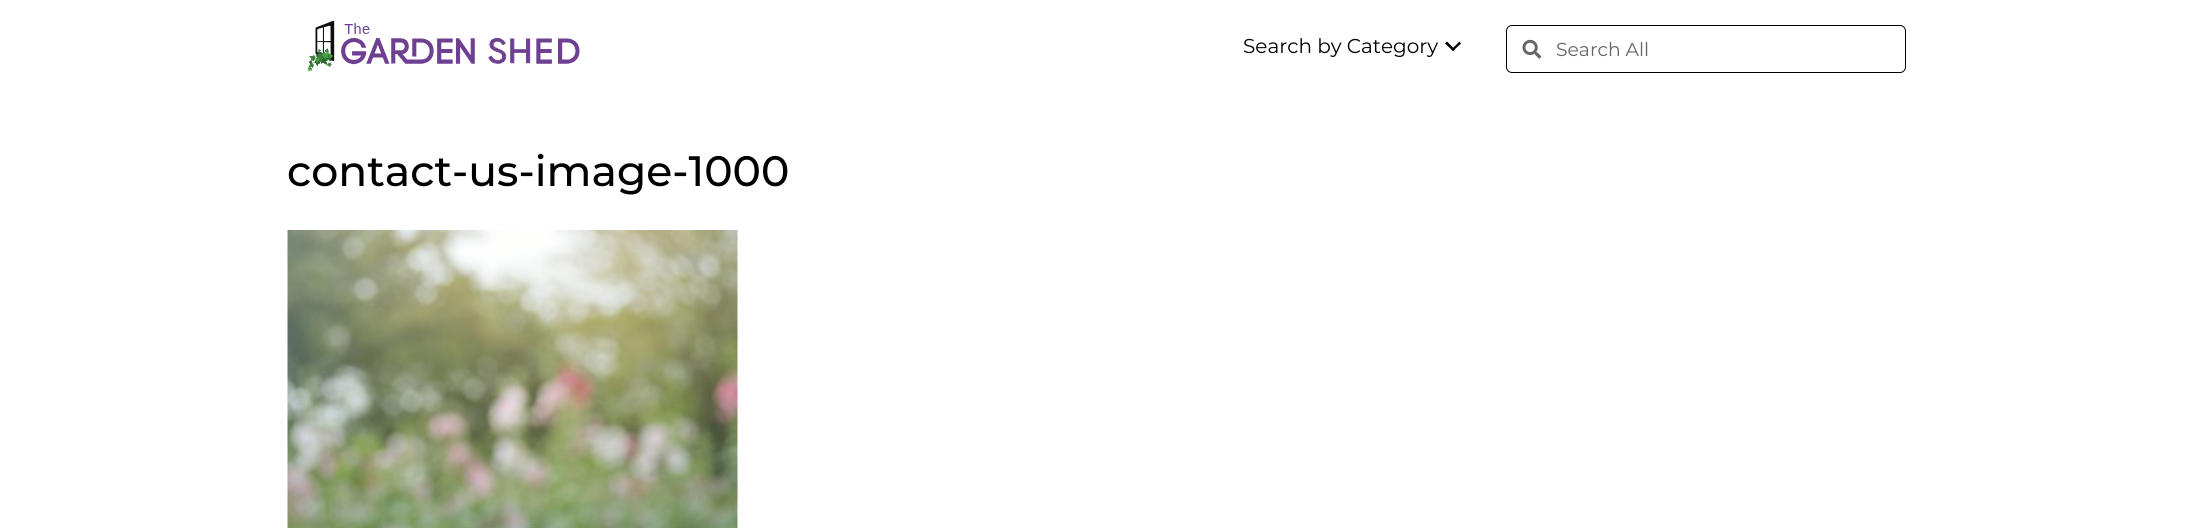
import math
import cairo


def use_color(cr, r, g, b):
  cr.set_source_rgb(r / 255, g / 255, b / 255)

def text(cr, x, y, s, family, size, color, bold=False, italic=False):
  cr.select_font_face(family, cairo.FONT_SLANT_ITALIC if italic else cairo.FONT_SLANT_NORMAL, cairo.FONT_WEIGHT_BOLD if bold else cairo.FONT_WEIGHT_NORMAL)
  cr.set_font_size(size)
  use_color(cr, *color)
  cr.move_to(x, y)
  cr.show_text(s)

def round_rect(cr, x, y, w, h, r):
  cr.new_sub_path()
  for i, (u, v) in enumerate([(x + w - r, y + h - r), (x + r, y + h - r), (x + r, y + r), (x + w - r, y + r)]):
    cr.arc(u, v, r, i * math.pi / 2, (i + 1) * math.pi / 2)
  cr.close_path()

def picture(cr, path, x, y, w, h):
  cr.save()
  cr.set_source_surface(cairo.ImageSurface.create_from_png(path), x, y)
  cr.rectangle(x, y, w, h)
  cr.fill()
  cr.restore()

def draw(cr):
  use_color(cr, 255, 255, 255)
  cr.paint()
  picture(cr, "img_01.png", 307, 20, 273, 52)
  use_color(cr, 0, 0, 0)
  cr.new_path()
  cr.move_to(1459.5, 41.5)
  cr.line_to(1461, 43.5)
  cr.line_to(1453, 51)
  cr.line_to(1451.5, 49.5)
  cr.close_path()
  cr.fill()
  cr.new_path()
  cr.move_to(1447, 41.5)
  cr.line_to(1455, 49.5)
  cr.line_to(1453, 51)
  cr.line_to(1445, 43.5)
  cr.close_path()
  cr.fill()
  round_rect(cr, 1506.5, 25.5, 399, 47, 5.5)
  cr.set_line_width(1)
  cr.stroke()
  picture(cr, "img_02.png", 1522, 39, 20, 20)
  picture(cr, "img_03.png", 287, 230, 451, 298)
  text(cr, 1243, 53, "Search by Category", "Montserrat", 20, (0, 0, 0))
  text(cr, 1556, 56, "Search All", "Montserrat", 18.75, (102, 102, 102))
  text(cr, 287, 186, "contact-us-image-1000", "Montserrat Medium", 42.5, (0, 0, 0))


surface = cairo.ImageSurface(cairo.FORMAT_RGB24, 2211, 528)
cr = cairo.Context(surface)
options = cairo.FontOptions()
options.set_hint_metrics(cairo.HINT_METRICS_OFF)
options.set_hint_style(cairo.HINT_STYLE_NONE)
cr.set_font_options(options)
cr.set_miter_limit(4)
draw(cr)
surface.write_to_png("out.png")
